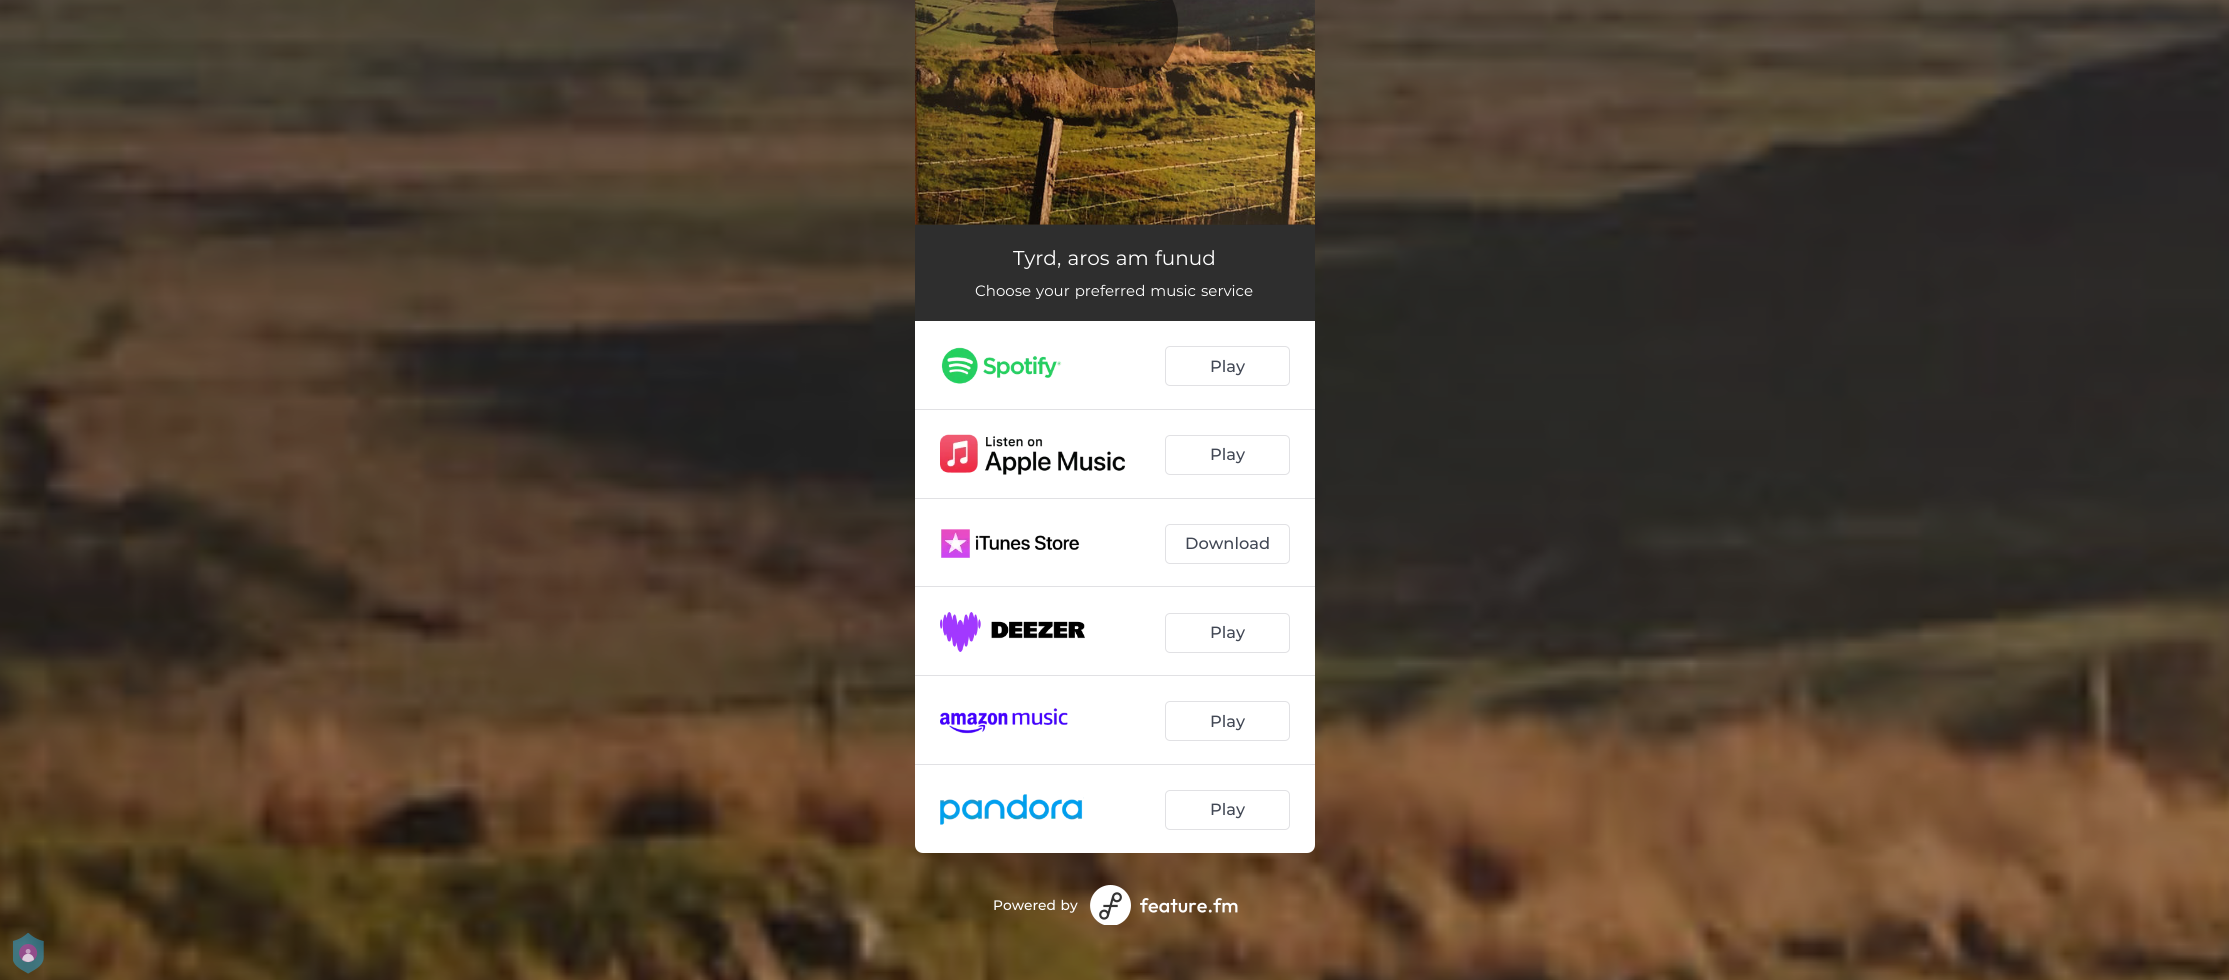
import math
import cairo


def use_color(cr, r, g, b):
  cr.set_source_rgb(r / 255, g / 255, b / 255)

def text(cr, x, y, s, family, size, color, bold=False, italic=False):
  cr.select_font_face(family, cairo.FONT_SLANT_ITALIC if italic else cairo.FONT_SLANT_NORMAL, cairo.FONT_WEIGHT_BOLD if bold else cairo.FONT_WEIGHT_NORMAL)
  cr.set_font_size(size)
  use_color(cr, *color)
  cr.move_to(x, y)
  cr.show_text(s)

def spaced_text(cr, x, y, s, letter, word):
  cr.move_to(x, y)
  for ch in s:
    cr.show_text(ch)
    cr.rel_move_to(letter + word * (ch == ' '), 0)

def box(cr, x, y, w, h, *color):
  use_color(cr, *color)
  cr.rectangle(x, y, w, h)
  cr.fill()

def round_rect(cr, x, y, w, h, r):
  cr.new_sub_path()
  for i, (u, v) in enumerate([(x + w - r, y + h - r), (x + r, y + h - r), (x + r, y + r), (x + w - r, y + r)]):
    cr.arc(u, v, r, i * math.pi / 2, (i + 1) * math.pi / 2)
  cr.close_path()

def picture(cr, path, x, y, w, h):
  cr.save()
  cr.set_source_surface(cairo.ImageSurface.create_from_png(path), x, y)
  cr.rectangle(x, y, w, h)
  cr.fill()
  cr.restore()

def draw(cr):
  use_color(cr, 255, 255, 255)
  cr.paint()
  picture(cr, "img_01.png", 0, 0, 2229, 980)
  picture(cr, "img_02.png", 915, 0, 400, 225)
  cr.set_source_rgba(0, 0, 0, 0.45)
  cr.arc(1115.5, 25.5, 62.5, 0, 2 * math.pi)
  cr.fill()
  box(cr, 915, 225, 400, 96, 46, 46, 46)
  use_color(cr, 255, 255, 255)
  cr.new_path()
  cr.move_to(915, 321)
  cr.line_to(1315, 321)
  cr.line_to(1315, 845)
  cr.curve_to(1315, 849.5, 1311.5, 853, 1307, 853)
  cr.line_to(923, 853)
  cr.curve_to(918.5, 853, 915, 849.5, 915, 845)
  cr.close_path()
  cr.fill()
  box(cr, 915, 409, 400, 1, 225, 225, 228)
  picture(cr, "img_03.png", 941, 347, 121, 37)
  round_rect(cr, 1165.5, 346.5, 124, 39, 4.5)
  cr.set_line_width(1)
  cr.stroke()
  box(cr, 915, 498, 400, 1, 225, 225, 228)
  picture(cr, "img_04.png", 940, 434, 185, 41)
  round_rect(cr, 1165.5, 435.5, 124, 39, 4.5)
  cr.stroke()
  box(cr, 915, 586, 400, 1, 225, 225, 228)
  picture(cr, "img_05.png", 941, 529, 139, 29)
  round_rect(cr, 1165.5, 524.5, 124, 39, 4.5)
  cr.stroke()
  box(cr, 915, 675, 400, 1, 225, 225, 228)
  picture(cr, "img_06.png", 940, 612, 145, 40)
  round_rect(cr, 1165.5, 613.5, 124, 39, 4.5)
  cr.stroke()
  box(cr, 915, 764, 400, 1, 225, 225, 228)
  picture(cr, "img_07.png", 940, 708, 128, 26)
  round_rect(cr, 1165.5, 701.5, 124, 39, 4.5)
  cr.stroke()
  picture(cr, "img_08.png", 940, 794, 144, 31)
  round_rect(cr, 1165.5, 790.5, 124, 39, 4.5)
  cr.stroke()
  picture(cr, "img_09.png", 1090, 885, 148, 40)
  picture(cr, "img_10.png", 13, 933, 31, 41)
  cr.select_font_face("Montserrat")
  cr.set_font_size(20)
  use_color(cr, 255, 255, 255)
  spaced_text(cr, 1013, 265, "Tyrd, aros am funud", 0, 1)
  cr.set_font_size(15)
  spaced_text(cr, 975, 296, "Choose your preferred music service", 0, 1)
  text(cr, 1210, 372, "Play", "Montserrat Medium", 16.25, (65, 71, 84))
  text(cr, 1210, 460, "Play", "Montserrat Medium", 16.25, (65, 71, 84))
  text(cr, 1185, 549, "Download", "Montserrat Medium", 16.25, (65, 71, 84))
  text(cr, 1210, 638, "Play", "Montserrat Medium", 16.25, (65, 71, 84))
  text(cr, 1210, 727, "Play", "Montserrat Medium", 16.25, (65, 71, 84))
  text(cr, 1210, 815, "Play", "Montserrat Medium", 16.25, (65, 71, 84))
  cr.set_font_size(13.75)
  use_color(cr, 255, 255, 255)
  spaced_text(cr, 993, 910, "Powered by", 0, 1)


surface = cairo.ImageSurface(cairo.FORMAT_RGB24, 2229, 980)
cr = cairo.Context(surface)
options = cairo.FontOptions()
options.set_hint_metrics(cairo.HINT_METRICS_OFF)
options.set_hint_style(cairo.HINT_STYLE_NONE)
cr.set_font_options(options)
cr.set_miter_limit(4)
draw(cr)
surface.write_to_png("out.png")
